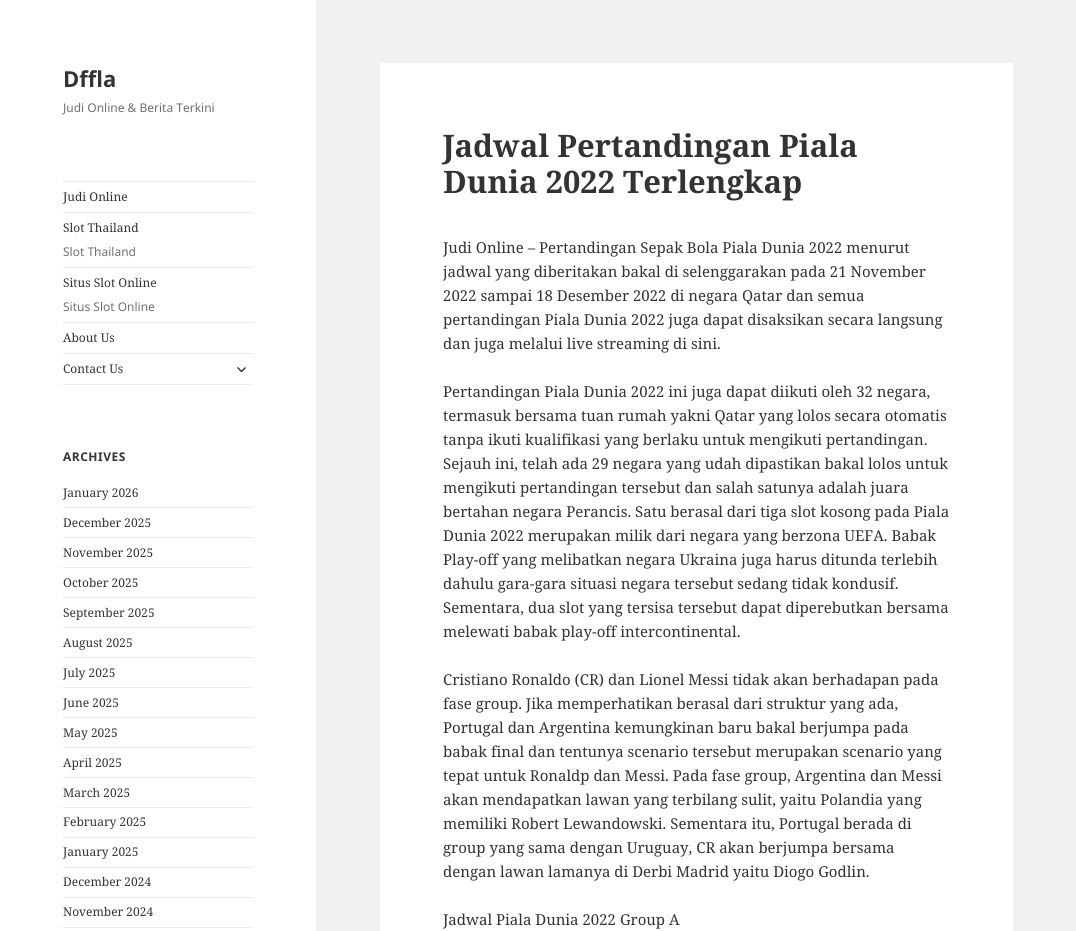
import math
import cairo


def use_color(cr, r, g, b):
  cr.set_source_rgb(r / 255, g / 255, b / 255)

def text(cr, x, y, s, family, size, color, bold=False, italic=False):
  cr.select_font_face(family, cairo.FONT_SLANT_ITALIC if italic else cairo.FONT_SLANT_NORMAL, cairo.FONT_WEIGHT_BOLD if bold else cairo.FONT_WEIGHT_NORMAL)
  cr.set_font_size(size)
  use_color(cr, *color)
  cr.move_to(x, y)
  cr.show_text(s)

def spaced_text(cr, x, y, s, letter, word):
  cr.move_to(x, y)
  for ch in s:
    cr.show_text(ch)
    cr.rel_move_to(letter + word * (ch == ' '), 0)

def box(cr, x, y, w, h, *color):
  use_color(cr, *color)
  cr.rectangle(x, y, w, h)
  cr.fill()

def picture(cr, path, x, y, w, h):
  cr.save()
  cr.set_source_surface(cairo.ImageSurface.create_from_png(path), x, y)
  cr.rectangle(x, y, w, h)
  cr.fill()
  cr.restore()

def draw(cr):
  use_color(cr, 241, 241, 241)
  cr.paint()
  box(cr, 0, 0, 316, 931, 255, 255, 255)
  box(cr, 63, 181, 190, 1, 235, 235, 235)
  box(cr, 63, 384, 190, 1, 235, 235, 235)
  box(cr, 63, 212, 190, 1, 235, 235, 235)
  box(cr, 63, 267, 190, 1, 235, 235, 235)
  box(cr, 63, 322, 190, 1, 235, 235, 235)
  box(cr, 63, 353, 190, 1, 235, 235, 235)
  picture(cr, "img_01.png", 237, 367, 9, 6)
  box(cr, 63, 507, 190, 1, 235, 235, 235)
  box(cr, 63, 537, 190, 1, 235, 235, 235)
  box(cr, 63, 567, 190, 1, 235, 235, 235)
  box(cr, 63, 597, 190, 1, 235, 235, 235)
  box(cr, 63, 627, 190, 1, 235, 235, 235)
  box(cr, 63, 657, 190, 1, 235, 235, 235)
  box(cr, 63, 687, 190, 1, 235, 235, 235)
  box(cr, 63, 717, 190, 1, 235, 235, 235)
  box(cr, 63, 747, 190, 1, 235, 235, 235)
  box(cr, 63, 777, 190, 1, 235, 235, 235)
  box(cr, 63, 807, 190, 1, 235, 235, 235)
  box(cr, 63, 837, 190, 1, 235, 235, 235)
  box(cr, 63, 867, 190, 1, 235, 235, 235)
  box(cr, 63, 897, 190, 1, 235, 235, 235)
  box(cr, 63, 927, 190, 1, 235, 235, 235)
  box(cr, 380, 63, 633, 868, 255, 255, 255)
  text(cr, 63, 87, "Dffla", "Noto Sans", 22, (51, 51, 51), bold=True)
  text(cr, 63, 112, "Judi Online & Berita Terkini", "Noto Sans", 12, (112, 112, 112))
  text(cr, 63, 201, "Judi Online", "Noto Serif", 12, (51, 51, 51))
  text(cr, 63, 232, "Slot Thailand", "Noto Serif", 12, (51, 51, 51))
  text(cr, 63, 256, "Slot Thailand", "Noto Sans", 12, (112, 112, 112))
  text(cr, 63, 287, "Situs Slot Online", "Noto Serif", 12, (51, 51, 51))
  text(cr, 63, 311, "Situs Slot Online", "Noto Sans", 12, (112, 112, 112))
  text(cr, 63, 342, "About Us", "Noto Serif", 12, (51, 51, 51))
  text(cr, 63, 373, "Contact Us", "Noto Serif", 12, (51, 51, 51))
  cr.select_font_face("Noto Sans", cairo.FONT_SLANT_NORMAL, cairo.FONT_WEIGHT_BOLD)
  spaced_text(cr, 63, 461, "ARCHIVES", 0.5, 0)
  text(cr, 63, 497, "January 2026", "Noto Serif", 12, (51, 51, 51))
  text(cr, 63, 527, "December 2025", "Noto Serif", 12, (51, 51, 51))
  text(cr, 63, 557, "November 2025", "Noto Serif", 12, (51, 51, 51))
  text(cr, 63, 587, "October 2025", "Noto Serif", 12, (51, 51, 51))
  text(cr, 63, 617, "September 2025", "Noto Serif", 12, (51, 51, 51))
  text(cr, 63, 647, "August 2025", "Noto Serif", 12, (51, 51, 51))
  text(cr, 63, 677, "July 2025", "Noto Serif", 12, (51, 51, 51))
  text(cr, 63, 707, "June 2025", "Noto Serif", 12, (51, 51, 51))
  text(cr, 63, 737, "May 2025", "Noto Serif", 12, (51, 51, 51))
  text(cr, 63, 767, "April 2025", "Noto Serif", 12, (51, 51, 51))
  text(cr, 63, 797, "March 2025", "Noto Serif", 12, (51, 51, 51))
  text(cr, 63, 826, "February 2025", "Noto Serif", 12, (51, 51, 51))
  text(cr, 63, 856, "January 2025", "Noto Serif", 12, (51, 51, 51))
  text(cr, 63, 886, "December 2024", "Noto Serif", 12, (51, 51, 51))
  text(cr, 63, 916, "November 2024", "Noto Serif", 12, (51, 51, 51))
  text(cr, 443, 157, "Jadwal Pertandingan Piala", "Noto Serif", 31, (51, 51, 51), bold=True)
  text(cr, 443, 193, "Dunia 2022 Terlengkap", "Noto Serif", 31, (51, 51, 51), bold=True)
  text(cr, 443, 253, "Judi Online – Pertandingan Sepak Bola Piala Dunia 2022 menurut", "Noto Serif", 15, (51, 51, 51))
  text(cr, 443, 277, "jadwal yang diberitakan bakal di selenggarakan pada 21 November", "Noto Serif", 15, (51, 51, 51))
  text(cr, 443, 301, "2022 sampai 18 Desember 2022 di negara Qatar dan semua", "Noto Serif", 15, (51, 51, 51))
  text(cr, 443, 325, "pertandingan Piala Dunia 2022 juga dapat disaksikan secara langsung", "Noto Serif", 15, (51, 51, 51))
  text(cr, 443, 349, "dan juga melalui live streaming di sini.", "Noto Serif", 15, (51, 51, 51))
  text(cr, 443, 397, "Pertandingan Piala Dunia 2022 ini juga dapat diikuti oleh 32 negara,", "Noto Serif", 15, (51, 51, 51))
  text(cr, 443, 421, "termasuk bersama tuan rumah yakni Qatar yang lolos secara otomatis", "Noto Serif", 15, (51, 51, 51))
  text(cr, 443, 445, "tanpa ikuti kualifikasi yang berlaku untuk mengikuti pertandingan.", "Noto Serif", 15, (51, 51, 51))
  text(cr, 443, 469, "Sejauh ini, telah ada 29 negara yang udah dipastikan bakal lolos untuk", "Noto Serif", 15, (51, 51, 51))
  text(cr, 443, 493, "mengikuti pertandingan tersebut dan salah satunya adalah juara", "Noto Serif", 15, (51, 51, 51))
  text(cr, 443, 517, "bertahan negara Perancis. Satu berasal dari tiga slot kosong pada Piala", "Noto Serif", 15, (51, 51, 51))
  text(cr, 443, 541, "Dunia 2022 merupakan milik dari negara yang berzona UEFA. Babak", "Noto Serif", 15, (51, 51, 51))
  text(cr, 443, 565, "Play-off yang melibatkan negara Ukraina juga harus ditunda terlebih", "Noto Serif", 15, (51, 51, 51))
  text(cr, 443, 589, "dahulu gara-gara situasi negara tersebut sedang tidak kondusif.", "Noto Serif", 15, (51, 51, 51))
  text(cr, 443, 613, "Sementara, dua slot yang tersisa tersebut dapat diperebutkan bersama", "Noto Serif", 15, (51, 51, 51))
  text(cr, 443, 637, "melewati babak play-off intercontinental.", "Noto Serif", 15, (51, 51, 51))
  text(cr, 443, 685, "Cristiano Ronaldo (CR) dan Lionel Messi tidak akan berhadapan pada", "Noto Serif", 15, (51, 51, 51))
  text(cr, 443, 709, "fase group. Jika memperhatikan berasal dari struktur yang ada,", "Noto Serif", 15, (51, 51, 51))
  text(cr, 443, 733, "Portugal dan Argentina kemungkinan baru bakal berjumpa pada", "Noto Serif", 15, (51, 51, 51))
  text(cr, 443, 757, "babak final dan tentunya scenario tersebut merupakan scenario yang", "Noto Serif", 15, (51, 51, 51))
  text(cr, 443, 781, "tepat untuk Ronaldp dan Messi. Pada fase group, Argentina dan Messi", "Noto Serif", 15, (51, 51, 51))
  text(cr, 443, 805, "akan mendapatkan lawan yang terbilang sulit, yaitu Polandia yang", "Noto Serif", 15, (51, 51, 51))
  text(cr, 443, 829, "memiliki Robert Lewandowski. Sementara itu, Portugal berada di", "Noto Serif", 15, (51, 51, 51))
  text(cr, 443, 853, "group yang sama dengan Uruguay, CR akan berjumpa bersama", "Noto Serif", 15, (51, 51, 51))
  text(cr, 443, 877, "dengan lawan lamanya di Derbi Madrid yaitu Diogo Godlin.", "Noto Serif", 15, (51, 51, 51))
  text(cr, 443, 925, "Jadwal Piala Dunia 2022 Group A", "Noto Serif", 15, (51, 51, 51))


surface = cairo.ImageSurface(cairo.FORMAT_RGB24, 1076, 931)
cr = cairo.Context(surface)
options = cairo.FontOptions()
options.set_hint_metrics(cairo.HINT_METRICS_OFF)
options.set_hint_style(cairo.HINT_STYLE_NONE)
cr.set_font_options(options)
cr.set_miter_limit(4)
draw(cr)
surface.write_to_png("out.png")
